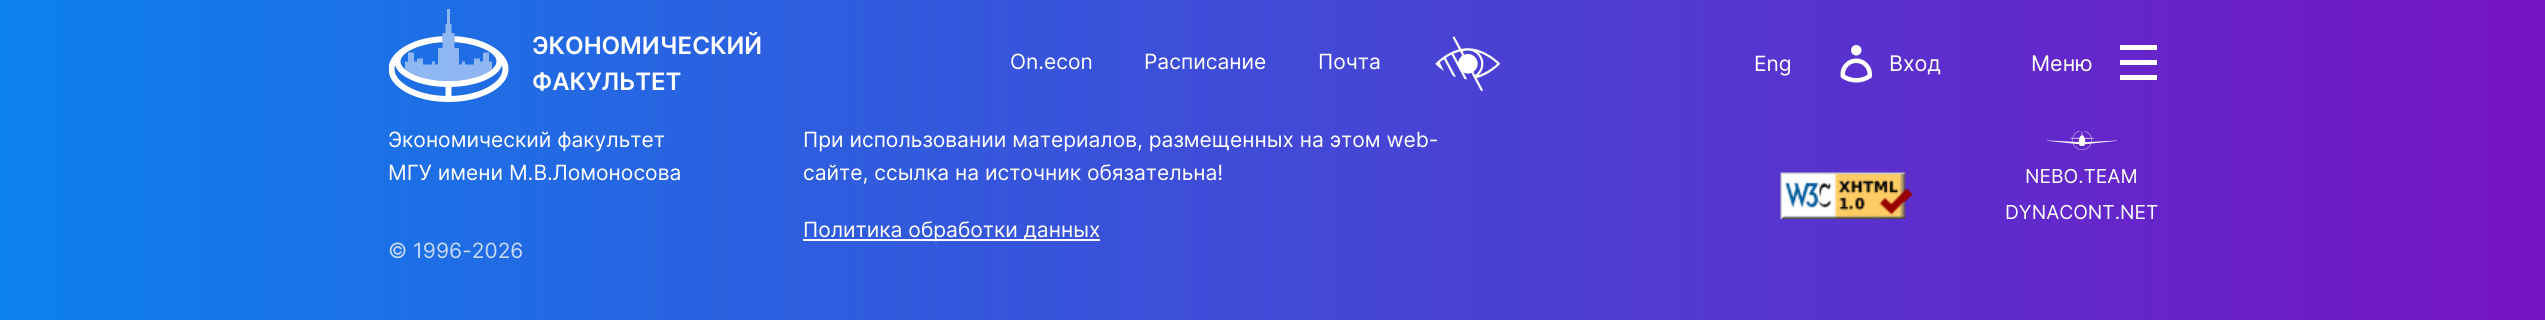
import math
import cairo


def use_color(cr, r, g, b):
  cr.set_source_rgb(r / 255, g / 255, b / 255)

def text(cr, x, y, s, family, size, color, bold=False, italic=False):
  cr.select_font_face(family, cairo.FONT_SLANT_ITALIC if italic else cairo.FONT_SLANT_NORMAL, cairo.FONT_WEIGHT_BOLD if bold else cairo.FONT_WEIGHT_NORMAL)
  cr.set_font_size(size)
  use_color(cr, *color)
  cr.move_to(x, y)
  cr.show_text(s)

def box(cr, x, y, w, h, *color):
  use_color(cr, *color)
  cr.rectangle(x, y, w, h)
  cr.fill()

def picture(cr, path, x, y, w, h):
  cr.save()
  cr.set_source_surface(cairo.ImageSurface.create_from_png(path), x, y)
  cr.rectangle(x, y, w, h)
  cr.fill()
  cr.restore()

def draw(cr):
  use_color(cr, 255, 255, 255)
  cr.paint()
  gradient = cairo.LinearGradient(0, 62, 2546, 62)
  gradient.add_color_stop_rgba(0, 0.047, 0.506, 0.925, 1)
  gradient.add_color_stop_rgba(1, 0.463, 0.075, 0.765, 1)
  cr.set_source(gradient)
  cr.rectangle(0, 0, 2545, 125)
  cr.fill()
  picture(cr, "img_01.png", 389, 9, 120, 93)
  picture(cr, "img_02.png", 1435, 36, 66, 56)
  picture(cr, "img_03.png", 1840, 45, 32, 38)
  box(cr, 2120, 45, 37, 5, 255, 255, 255)
  box(cr, 2120, 60, 37, 5, 255, 255, 255)
  box(cr, 2120, 75, 37, 5, 255, 255, 255)
  gradient = cairo.LinearGradient(0, -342, 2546, -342)
  gradient.add_color_stop_rgba(0, 0.047, 0.506, 0.925, 1)
  gradient.add_color_stop_rgba(1, 0.463, 0.075, 0.765, 1)
  cr.set_source(gradient)
  cr.rectangle(0, 125, 2545, 195)
  cr.fill()
  box(cr, 803, 239, 297, 2, 255, 255, 255)
  picture(cr, "img_04.png", 1780, 172, 133, 47)
  picture(cr, "img_05.png", 2047, 131, 70, 19)
  text(cr, 532, 54, "ЭКОНОМИЧЕСКИЙ", "Inter SemiBold", 24, (255, 255, 255))
  text(cr, 532, 90, "ФАКУЛЬТЕТ", "Inter SemiBold", 24, (255, 255, 255))
  text(cr, 1010, 69, "On.econ", "Inter", 21, (255, 255, 255))
  text(cr, 1144, 69, "Расписание", "Inter", 21, (255, 255, 255))
  text(cr, 1318, 69, "Почта", "Inter", 21, (255, 255, 255))
  text(cr, 1754, 71, "Eng", "Inter", 21, (255, 255, 255))
  text(cr, 1889, 71, "Вход", "Inter", 21.5, (255, 255, 255))
  text(cr, 2031, 71, "Меню", "Inter", 21.5, (255, 255, 255))
  text(cr, 388, 147, "Экономический факультет", "Inter", 21, (255, 255, 255))
  text(cr, 388, 180, "МГУ имени М.В.Ломоносова", "Inter", 21, (255, 255, 255))
  text(cr, 388, 258, "© 1996-2026", "Inter", 21, (199, 219, 248))
  text(cr, 803, 147, "При использовании материалов, размещенных на этом web-", "Inter", 21, (255, 255, 255))
  text(cr, 803, 180, "сайте, ссылка на источник обязательна!", "Inter", 21, (255, 255, 255))
  text(cr, 803, 237, "Политика обработки данных", "Inter", 21, (255, 255, 255))
  text(cr, 2025, 183, "NEBO.TEAM", "Inter", 19.25, (255, 255, 255))
  text(cr, 2005, 219, "DYNACONT.NET", "Inter", 19.25, (255, 255, 255))


surface = cairo.ImageSurface(cairo.FORMAT_RGB24, 2545, 320)
cr = cairo.Context(surface)
options = cairo.FontOptions()
options.set_hint_metrics(cairo.HINT_METRICS_OFF)
options.set_hint_style(cairo.HINT_STYLE_NONE)
cr.set_font_options(options)
cr.set_miter_limit(4)
draw(cr)
surface.write_to_png("out.png")
